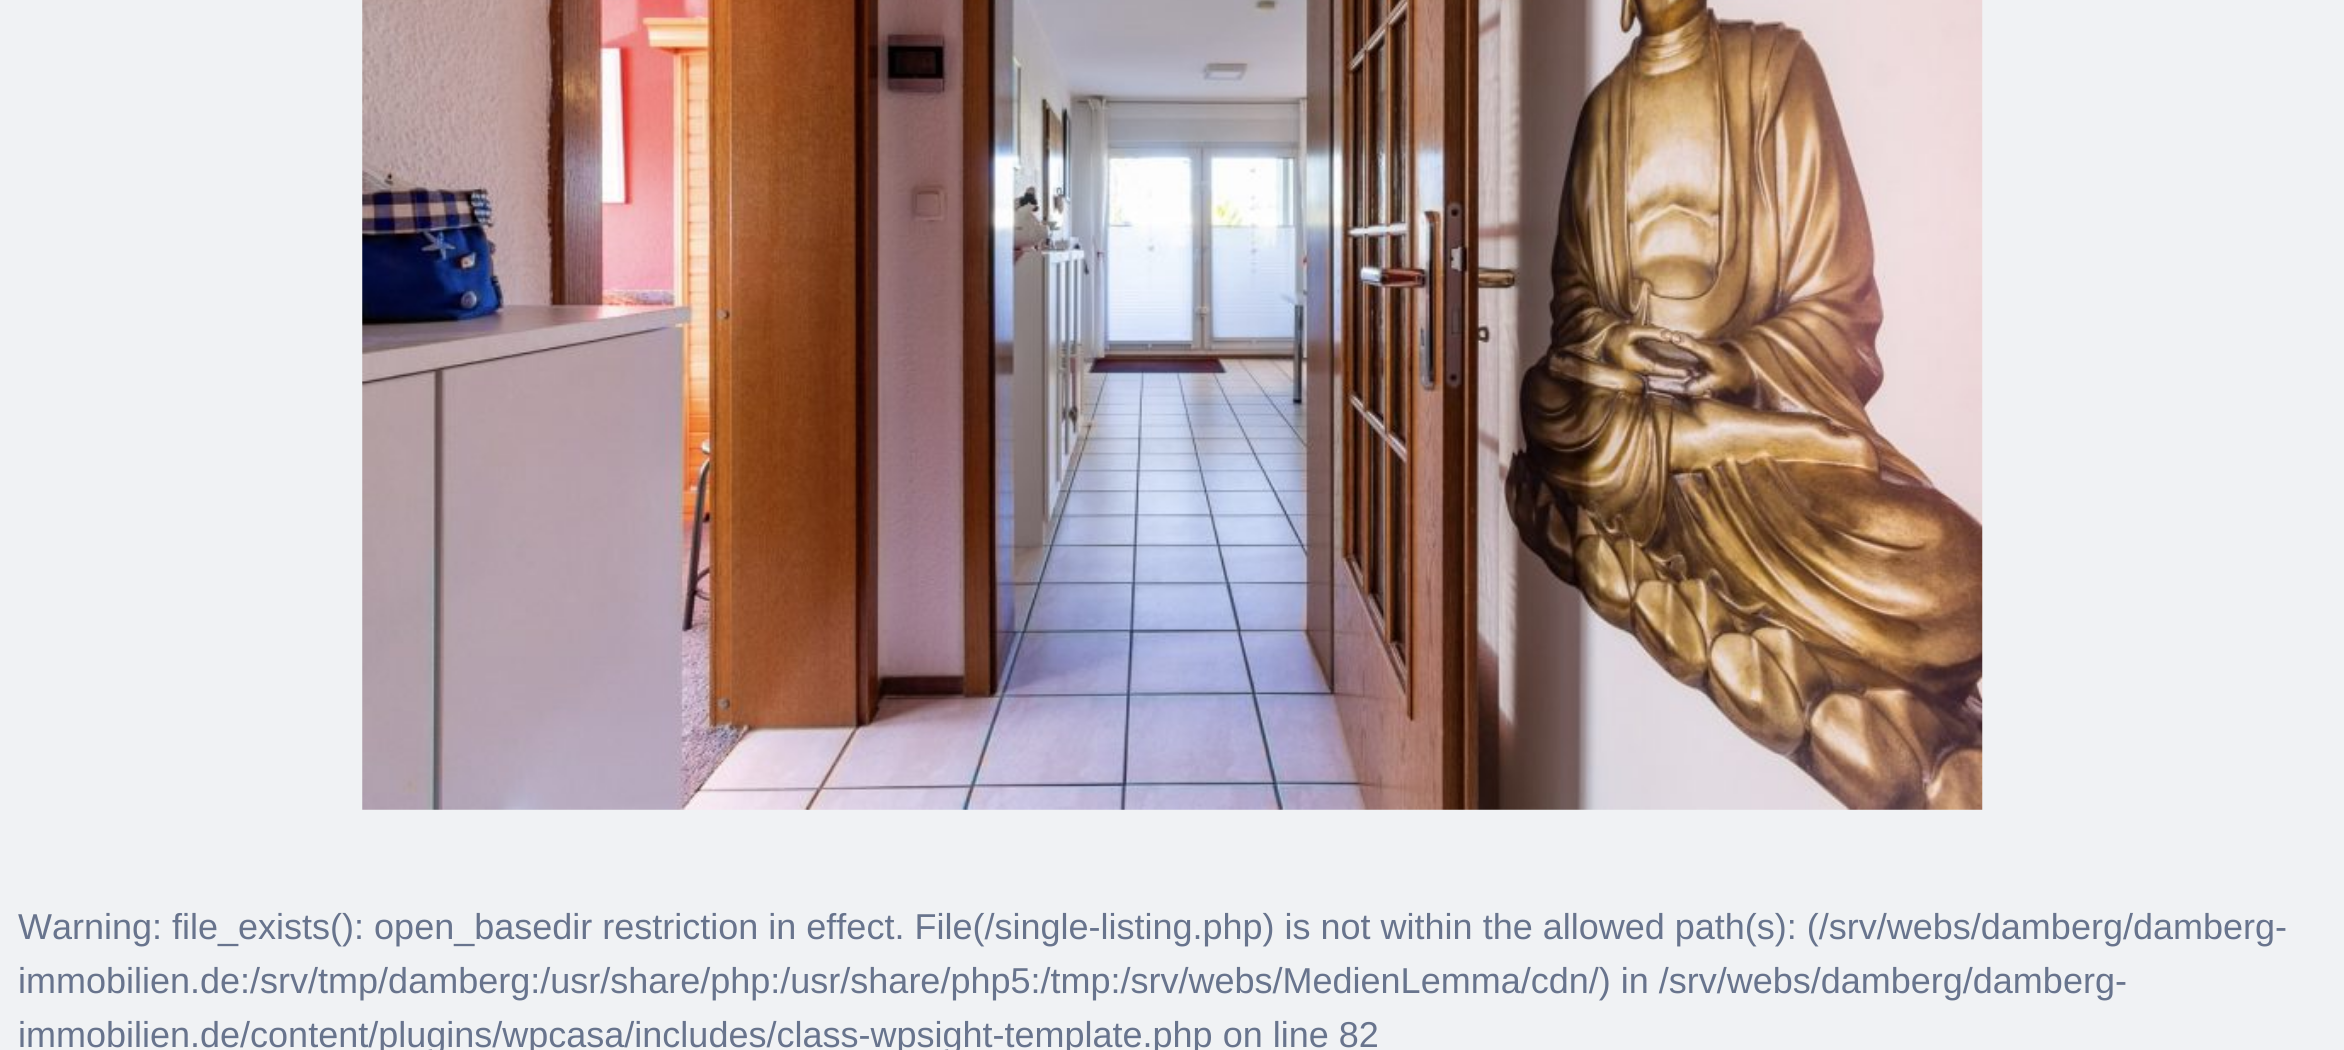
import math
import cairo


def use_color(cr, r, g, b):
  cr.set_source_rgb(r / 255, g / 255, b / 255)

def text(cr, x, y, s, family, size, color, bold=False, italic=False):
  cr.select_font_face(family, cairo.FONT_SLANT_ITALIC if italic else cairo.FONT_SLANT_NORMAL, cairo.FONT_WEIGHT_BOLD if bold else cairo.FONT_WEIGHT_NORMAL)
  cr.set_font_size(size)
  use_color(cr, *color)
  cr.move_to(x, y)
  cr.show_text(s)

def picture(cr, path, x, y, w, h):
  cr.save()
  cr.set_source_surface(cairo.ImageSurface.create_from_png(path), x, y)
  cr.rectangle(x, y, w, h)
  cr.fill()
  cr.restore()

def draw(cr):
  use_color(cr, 240, 242, 244)
  cr.paint()
  picture(cr, "img_01.png", 362, 0, 1621, 810)
  text(cr, 18, 939, "Warning: file_exists(): open_basedir restriction in effect. File(/single-listing.php) is not within the allowed path(s): (/srv/webs/damberg/damberg-", "Liberation Sans", 36, (104, 116, 141))
  text(cr, 18, 993, "immobilien.de:/srv/tmp/damberg:/usr/share/php:/usr/share/php5:/tmp:/srv/webs/MedienLemma/cdn/) in /srv/webs/damberg/damberg-", "Liberation Sans", 36, (104, 116, 141))
  text(cr, 18, 1047, "immobilien.de/content/plugins/wpcasa/includes/class-wpsight-template.php on line 82", "Liberation Sans", 36, (104, 116, 141))


surface = cairo.ImageSurface(cairo.FORMAT_RGB24, 2344, 1050)
cr = cairo.Context(surface)
options = cairo.FontOptions()
options.set_hint_metrics(cairo.HINT_METRICS_OFF)
options.set_hint_style(cairo.HINT_STYLE_NONE)
cr.set_font_options(options)
cr.set_miter_limit(4)
draw(cr)
surface.write_to_png("out.png")
